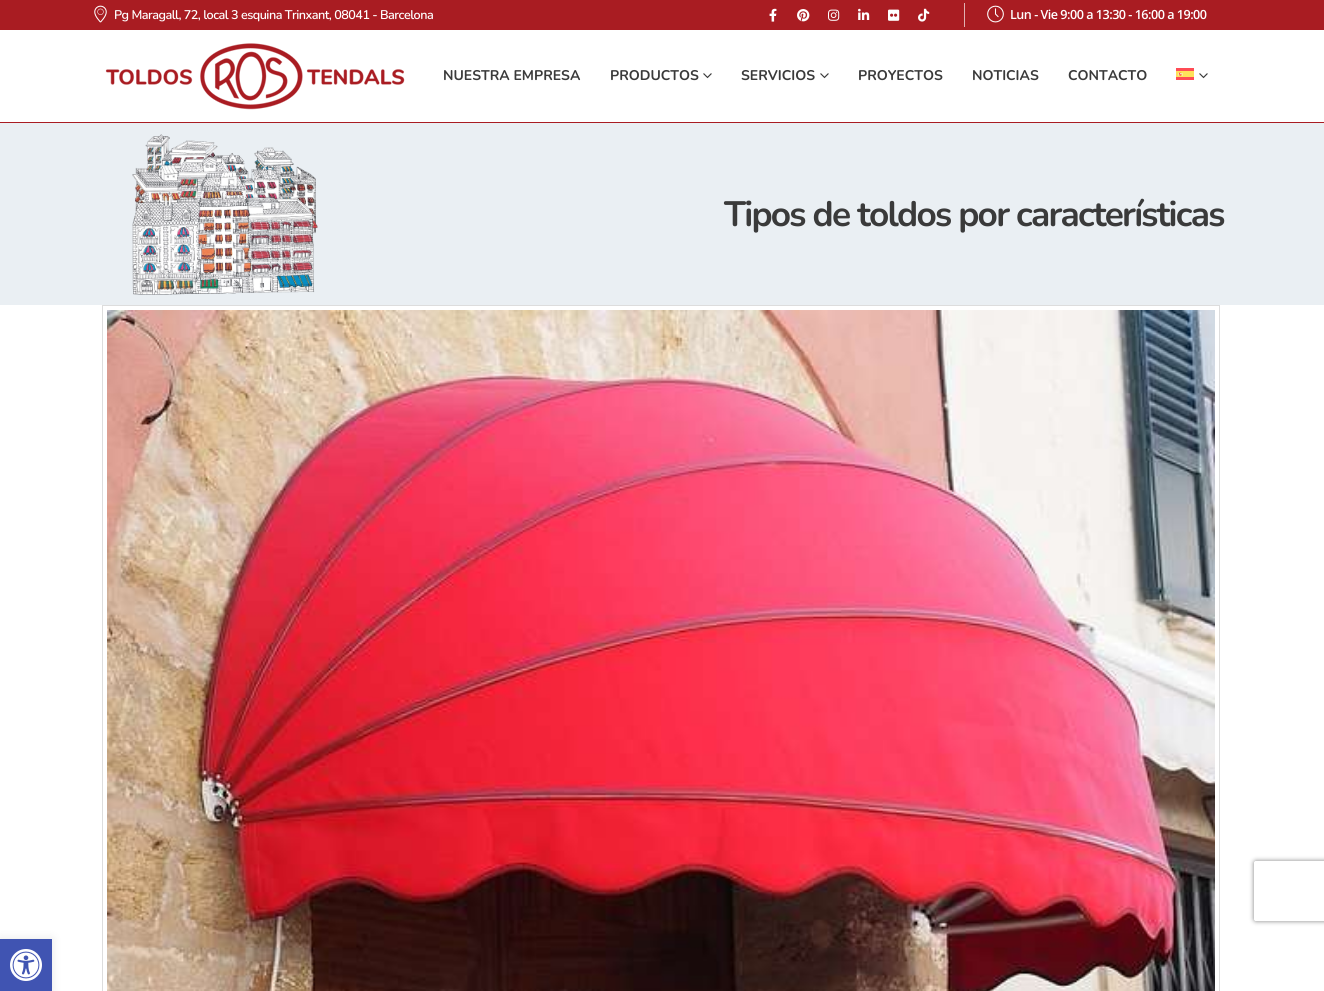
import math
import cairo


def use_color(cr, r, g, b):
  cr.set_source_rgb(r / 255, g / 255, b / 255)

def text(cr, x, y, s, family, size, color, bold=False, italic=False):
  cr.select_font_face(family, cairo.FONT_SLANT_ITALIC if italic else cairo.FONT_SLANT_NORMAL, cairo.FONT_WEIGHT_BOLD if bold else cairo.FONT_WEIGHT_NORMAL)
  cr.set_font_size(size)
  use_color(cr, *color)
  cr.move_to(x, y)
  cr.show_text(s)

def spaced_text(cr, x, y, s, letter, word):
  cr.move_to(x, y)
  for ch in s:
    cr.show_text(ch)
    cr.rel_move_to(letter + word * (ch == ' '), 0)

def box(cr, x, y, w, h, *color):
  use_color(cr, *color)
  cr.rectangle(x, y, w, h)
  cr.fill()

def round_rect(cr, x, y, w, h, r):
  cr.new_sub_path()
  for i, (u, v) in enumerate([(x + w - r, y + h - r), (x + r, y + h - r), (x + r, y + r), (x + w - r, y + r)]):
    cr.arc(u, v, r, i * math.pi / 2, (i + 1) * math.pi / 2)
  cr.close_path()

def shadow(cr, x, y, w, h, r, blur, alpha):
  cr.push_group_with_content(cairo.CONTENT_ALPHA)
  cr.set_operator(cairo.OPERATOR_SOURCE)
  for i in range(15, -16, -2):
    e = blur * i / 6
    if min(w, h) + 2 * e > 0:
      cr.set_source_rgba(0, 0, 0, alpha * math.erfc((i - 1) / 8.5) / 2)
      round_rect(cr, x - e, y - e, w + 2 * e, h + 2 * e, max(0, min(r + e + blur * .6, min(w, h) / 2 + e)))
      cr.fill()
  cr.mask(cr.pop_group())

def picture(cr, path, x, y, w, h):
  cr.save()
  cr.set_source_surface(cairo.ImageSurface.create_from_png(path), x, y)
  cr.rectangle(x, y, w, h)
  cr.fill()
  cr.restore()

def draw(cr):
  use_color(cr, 255, 255, 255)
  cr.paint()
  box(cr, 0, 122, 1324, 1, 169, 28, 34)
  box(cr, 0, 0, 1324, 30, 169, 28, 34)
  picture(cr, "img_01.png", 94, 5, 13, 18)
  picture(cr, "img_02.png", 769, 8, 8, 14)
  picture(cr, "img_03.png", 797, 9, 13, 13)
  picture(cr, "img_04.png", 828, 9, 12, 12)
  picture(cr, "img_05.png", 858, 8, 12, 12)
  picture(cr, "img_06.png", 888, 9, 12, 12)
  picture(cr, "img_07.png", 918, 8, 12, 14)
  box(cr, 964, 3, 1, 24, 225, 176, 178)
  picture(cr, "img_08.png", 987, 5, 17, 18)
  picture(cr, "img_09.png", 105, 43, 300, 67)
  picture(cr, "img_10.png", 703, 73, 9, 6)
  picture(cr, "img_10.png", 820, 73, 9, 6)
  picture(cr, "img_11.png", 1176, 68, 18, 12)
  picture(cr, "img_10.png", 1199, 73, 9, 6)
  box(cr, 0, 123, 1324, 182, 234, 239, 243)
  picture(cr, "img_12.png", 132, 134, 186, 161)
  cr.rectangle(102.5, 305.5, 1117, 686)
  use_color(cr, 221, 221, 221)
  cr.set_line_width(1)
  cr.stroke()
  picture(cr, "img_13.png", 107, 310, 1108, 681)
  cr.save()
  cr.set_fill_rule(cairo.FILL_RULE_EVEN_ODD)
  cr.new_path()
  cr.move_to(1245, 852)
  cr.line_to(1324, 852)
  cr.line_to(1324, 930)
  cr.line_to(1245, 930)
  cr.close_path()
  cr.move_to(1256, 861)
  cr.line_to(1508, 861)
  cr.curve_to(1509, 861, 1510, 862, 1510, 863)
  cr.line_to(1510, 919)
  cr.curve_to(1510, 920, 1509, 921, 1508, 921)
  cr.line_to(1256, 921)
  cr.curve_to(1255, 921, 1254, 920, 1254, 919)
  cr.line_to(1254, 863)
  cr.curve_to(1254, 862, 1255, 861, 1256, 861)
  cr.close_path()
  cr.clip()
  use_color(cr, 128, 128, 128)
  shadow(cr, 1254, 861, 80, 60, 2, 2.5, 1)
  cr.restore()
  use_color(cr, 0, 0, 0)
  shadow(cr, 0, 939, 52, 52, 0, 5, 0.1)
  box(cr, 0, 939, 52, 52, 64, 84, 178)
  picture(cr, "img_14.png", 10, 949, 32, 32)
  cr.select_font_face("Nunito SemiBold")
  cr.set_font_size(12.6)
  use_color(cr, 255, 255, 255)
  spaced_text(cr, 114, 19, "Pg Maragall, 72, local 3 esquina Trinxant, 08041 - Barcelona", -0.5, 0)
  cr.select_font_face("Open Sans SemiBold")
  spaced_text(cr, 1010, 19, "Lun - Vie 9:00 a 13:30 - 16:00 a 19:00", -0.5, 0)
  text(cr, 443, 80, "NUESTRA EMPRESA", "Nunito", 14, (58, 58, 58), bold=True)
  text(cr, 610, 80, "PRODUCTOS", "Nunito", 14, (58, 58, 58), bold=True)
  text(cr, 741, 80, "SERVICIOS", "Nunito", 14, (58, 58, 58), bold=True)
  text(cr, 858, 80, "PROYECTOS", "Nunito", 14, (58, 58, 58), bold=True)
  text(cr, 972, 80, "NOTICIAS", "Nunito", 14, (58, 58, 58), bold=True)
  text(cr, 1068, 80, "CONTACTO", "Nunito", 14, (58, 58, 58), bold=True)
  cr.set_font_size(35.25)
  spaced_text(cr, 724, 226, "Tipos de toldos por características", -1.75, 0)


surface = cairo.ImageSurface(cairo.FORMAT_RGB24, 1324, 991)
cr = cairo.Context(surface)
options = cairo.FontOptions()
options.set_hint_metrics(cairo.HINT_METRICS_OFF)
options.set_hint_style(cairo.HINT_STYLE_NONE)
cr.set_font_options(options)
cr.set_miter_limit(4)
draw(cr)
surface.write_to_png("out.png")
